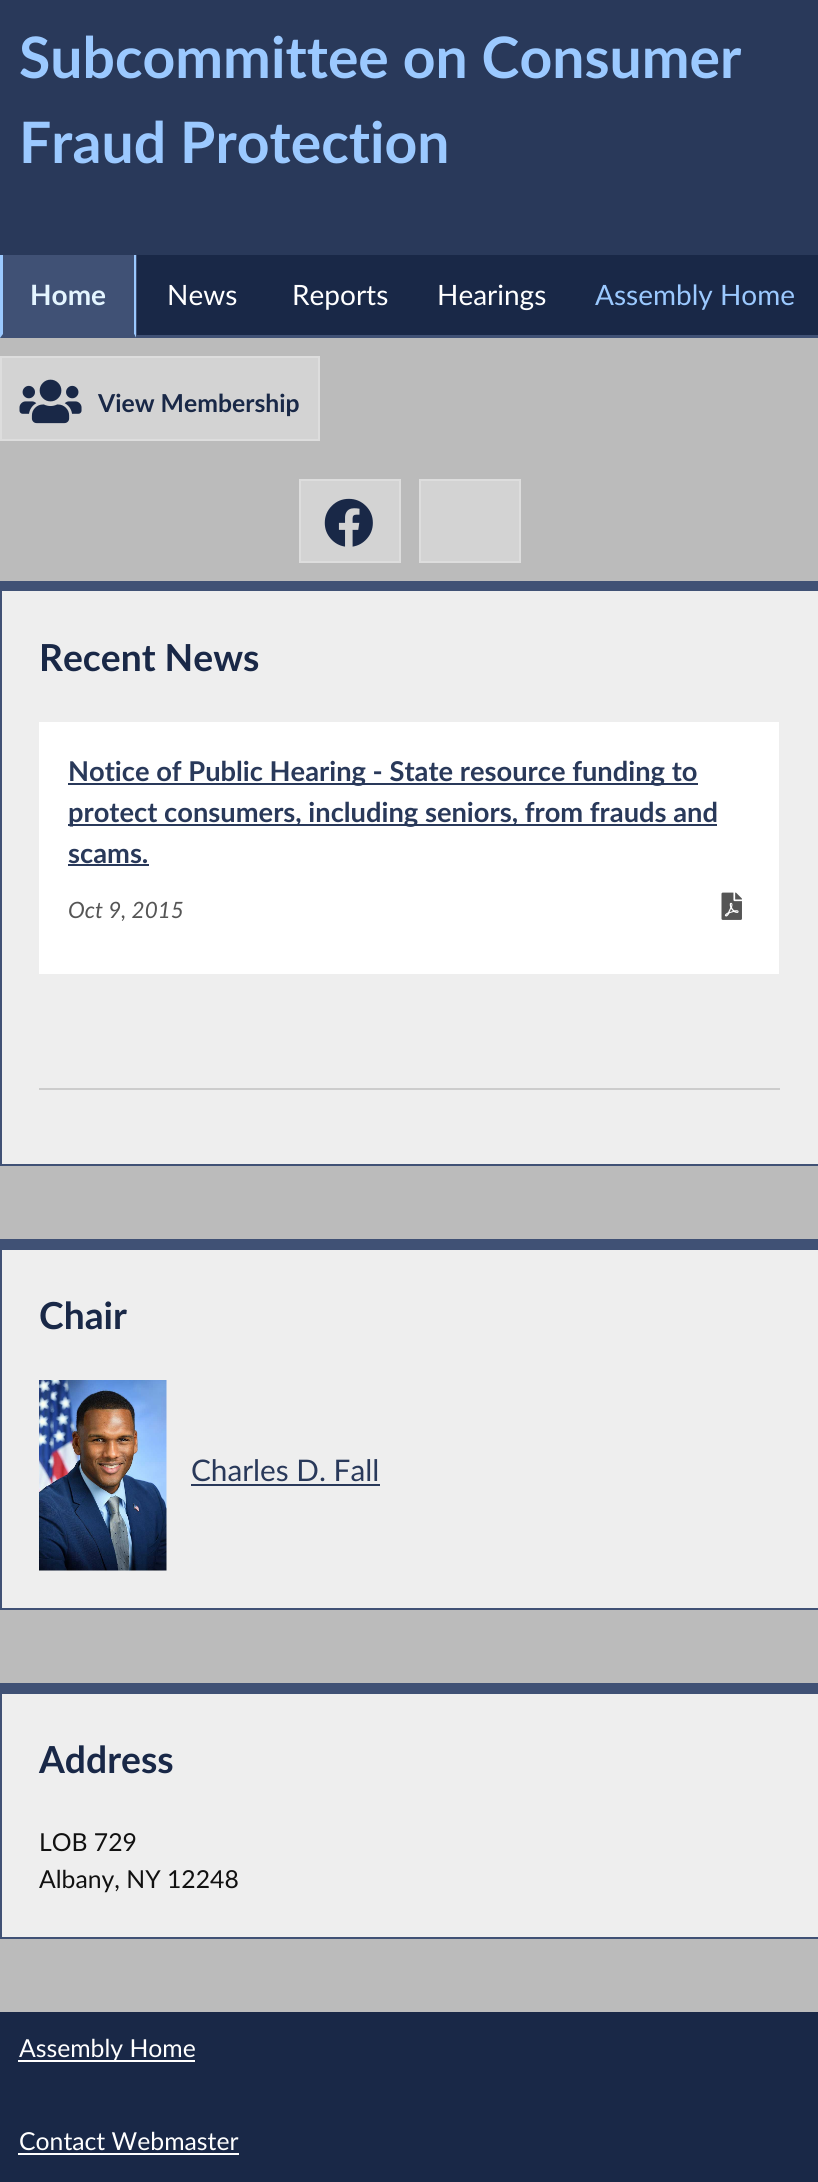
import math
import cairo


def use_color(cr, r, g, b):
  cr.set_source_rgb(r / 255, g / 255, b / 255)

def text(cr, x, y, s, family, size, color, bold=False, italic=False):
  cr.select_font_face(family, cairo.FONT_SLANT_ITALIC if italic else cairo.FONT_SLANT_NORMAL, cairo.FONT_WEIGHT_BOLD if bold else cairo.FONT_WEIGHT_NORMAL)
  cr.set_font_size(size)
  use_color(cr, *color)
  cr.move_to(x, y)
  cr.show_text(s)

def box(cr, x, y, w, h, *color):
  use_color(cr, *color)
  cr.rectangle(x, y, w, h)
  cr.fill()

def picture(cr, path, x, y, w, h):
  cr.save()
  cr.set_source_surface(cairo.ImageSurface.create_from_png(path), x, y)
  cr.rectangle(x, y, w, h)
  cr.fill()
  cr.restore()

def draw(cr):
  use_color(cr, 187, 187, 187)
  cr.paint()
  box(cr, 0, 0, 818, 255, 41, 57, 90)
  box(cr, 137, 255, 681, 80, 25, 40, 71)
  box(cr, 0, 255, 137, 83, 64, 81, 117)
  use_color(cr, 155, 201, 255)
  cr.new_path()
  cr.move_to(136, 255)
  cr.line_to(136, 338)
  cr.line_to(134, 334)
  cr.line_to(134, 255)
  cr.close_path()
  cr.fill()
  use_color(cr, 64, 81, 117)
  cr.new_path()
  cr.move_to(136, 338)
  cr.line_to(0, 338)
  cr.line_to(3, 334)
  cr.line_to(134, 334)
  cr.close_path()
  cr.fill()
  use_color(cr, 155, 201, 255)
  cr.new_path()
  cr.move_to(0, 338)
  cr.line_to(0, 255)
  cr.line_to(3, 255)
  cr.line_to(3, 334)
  cr.close_path()
  cr.fill()
  box(cr, 137, 335, 681, 3, 64, 81, 117)
  use_color(cr, 211, 211, 211)
  cr.rectangle(1, 357, 318, 83)
  cr.fill_preserve()
  use_color(cr, 221, 221, 221)
  cr.stroke()
  picture(cr, "img_01.png", 19, 379, 63, 45)
  use_color(cr, 211, 211, 211)
  cr.rectangle(300, 480, 100, 82)
  cr.fill_preserve()
  use_color(cr, 221, 221, 221)
  cr.stroke()
  picture(cr, "img_02.png", 324, 498, 49, 49)
  use_color(cr, 211, 211, 211)
  cr.rectangle(420, 480, 100, 82)
  cr.fill_preserve()
  use_color(cr, 221, 221, 221)
  cr.stroke()
  box(cr, 2, 591, 816, 573, 238, 238, 238)
  box(cr, 2, 581, 816, 10, 64, 81, 117)
  box(cr, 0, 1164, 818, 2, 64, 81, 117)
  box(cr, 0, 581, 2, 585, 64, 81, 117)
  box(cr, 39, 1088, 741, 2, 204, 204, 204)
  box(cr, 39, 722, 740, 252, 255, 255, 255)
  box(cr, 68, 783, 630, 2, 41, 57, 90)
  box(cr, 68, 824, 649, 2, 41, 57, 90)
  box(cr, 68, 864, 81, 2, 41, 57, 90)
  picture(cr, "img_03.png", 721, 892, 21, 28)
  box(cr, 2, 1250, 816, 358, 238, 238, 238)
  box(cr, 2, 1239, 816, 11, 64, 81, 117)
  box(cr, 0, 1608, 818, 2, 64, 81, 117)
  box(cr, 0, 1239, 2, 371, 64, 81, 117)
  picture(cr, "img_04.png", 39, 1380, 128, 191)
  box(cr, 191, 1484, 189, 2, 41, 57, 90)
  box(cr, 2, 1694, 816, 243, 238, 238, 238)
  box(cr, 2, 1683, 816, 11, 64, 81, 117)
  box(cr, 0, 1937, 818, 2, 64, 81, 117)
  box(cr, 0, 1683, 2, 255, 64, 81, 117)
  box(cr, 0, 2012, 818, 170, 25, 40, 71)
  box(cr, 18, 2060, 177, 2, 255, 255, 255)
  box(cr, 18, 2153, 221, 2, 255, 255, 255)
  text(cr, 19, 78, "Subcommittee on Consumer", "Lato", 57.1, (155, 201, 255), bold=True)
  text(cr, 19, 163, "Fraud Protection", "Lato", 57.1, (155, 201, 255), bold=True)
  text(cr, 30, 305, "Home", "Lato", 28, (228, 245, 255), bold=True)
  text(cr, 167, 305, "News", "Lato", 28, (255, 255, 255))
  text(cr, 292, 305, "Reports", "Lato", 28, (255, 255, 255))
  text(cr, 437, 305, "Hearings", "Lato", 28, (255, 255, 255))
  text(cr, 595, 305, "Assembly Home", "Lato", 28, (155, 201, 255))
  text(cr, 98, 412, "View Membership", "Lato", 24.75, (25, 40, 71), bold=True)
  text(cr, 39, 671, "Recent News", "Lato", 37.25, (25, 40, 71), bold=True)
  text(cr, 68, 781, "Notice of Public Hearing - State resource funding to", "Lato", 27.3, (41, 57, 90), bold=True)
  text(cr, 68, 822, "protect consumers, including seniors, from frauds and", "Lato", 27.3, (41, 57, 90), bold=True)
  text(cr, 68, 863, "scams.", "Lato", 27.3, (41, 57, 90), bold=True)
  text(cr, 68, 918, "Oct 9, 2015", "Lato", 22.5, (85, 85, 85), italic=True)
  text(cr, 39, 1329, "Chair", "Lato", 37.25, (25, 40, 71), bold=True)
  text(cr, 191, 1481, "Charles D. Fall", "Lato", 29.75, (41, 57, 90))
  text(cr, 39, 1773, "Address", "Lato", 37.25, (25, 40, 71), bold=True)
  text(cr, 39, 1851, "LOB 729", "Lato", 24.75, (17, 17, 17))
  text(cr, 39, 1888, "Albany, NY 12248", "Lato", 24.75, (17, 17, 17))
  text(cr, 19, 2057, "Assembly Home", "Lato", 24.75, (255, 255, 255))
  text(cr, 19, 2150, "Contact Webmaster", "Lato", 24.75, (255, 255, 255))


surface = cairo.ImageSurface(cairo.FORMAT_RGB24, 818, 2182)
cr = cairo.Context(surface)
options = cairo.FontOptions()
options.set_hint_metrics(cairo.HINT_METRICS_OFF)
options.set_hint_style(cairo.HINT_STYLE_NONE)
cr.set_font_options(options)
cr.set_miter_limit(4)
draw(cr)
surface.write_to_png("out.png")
